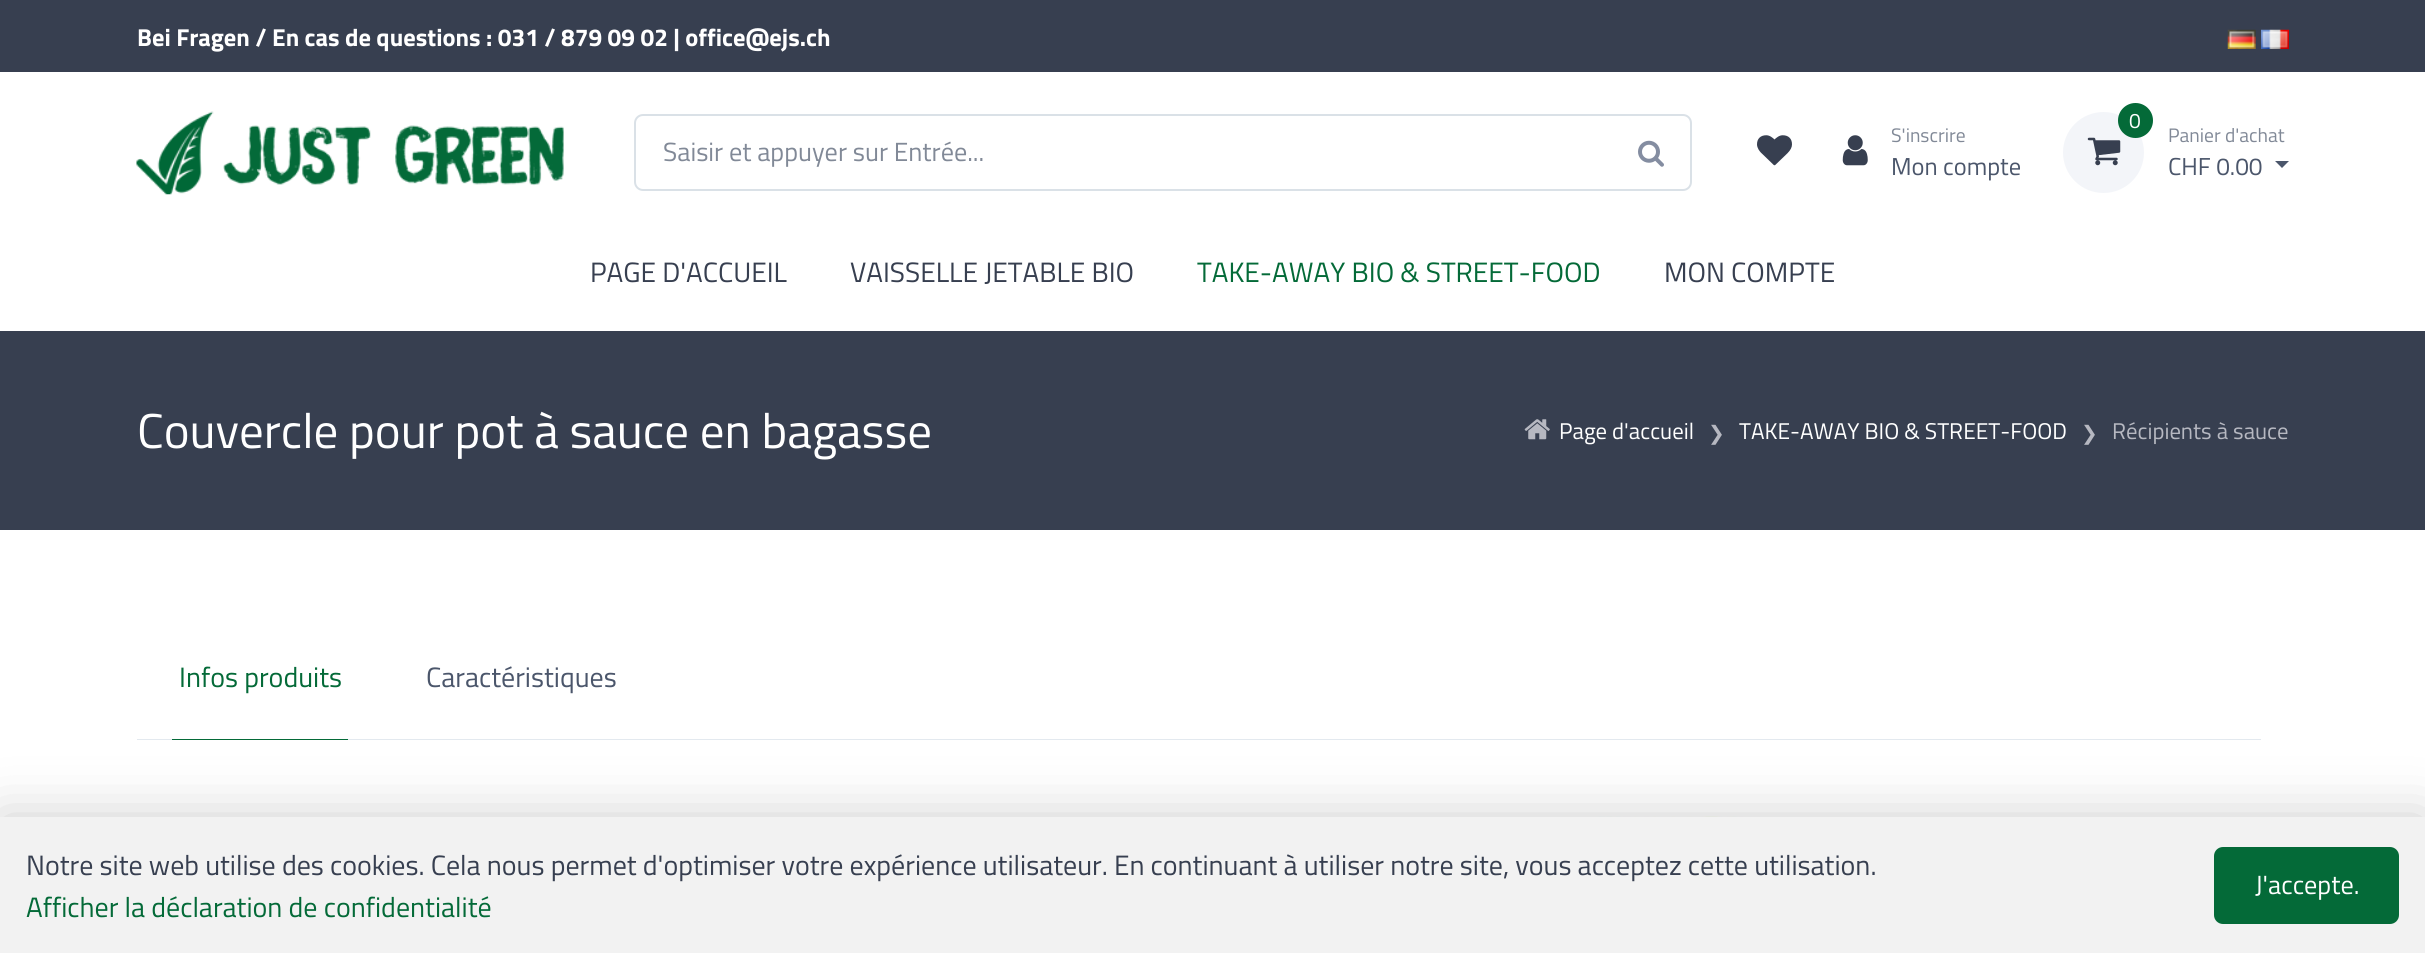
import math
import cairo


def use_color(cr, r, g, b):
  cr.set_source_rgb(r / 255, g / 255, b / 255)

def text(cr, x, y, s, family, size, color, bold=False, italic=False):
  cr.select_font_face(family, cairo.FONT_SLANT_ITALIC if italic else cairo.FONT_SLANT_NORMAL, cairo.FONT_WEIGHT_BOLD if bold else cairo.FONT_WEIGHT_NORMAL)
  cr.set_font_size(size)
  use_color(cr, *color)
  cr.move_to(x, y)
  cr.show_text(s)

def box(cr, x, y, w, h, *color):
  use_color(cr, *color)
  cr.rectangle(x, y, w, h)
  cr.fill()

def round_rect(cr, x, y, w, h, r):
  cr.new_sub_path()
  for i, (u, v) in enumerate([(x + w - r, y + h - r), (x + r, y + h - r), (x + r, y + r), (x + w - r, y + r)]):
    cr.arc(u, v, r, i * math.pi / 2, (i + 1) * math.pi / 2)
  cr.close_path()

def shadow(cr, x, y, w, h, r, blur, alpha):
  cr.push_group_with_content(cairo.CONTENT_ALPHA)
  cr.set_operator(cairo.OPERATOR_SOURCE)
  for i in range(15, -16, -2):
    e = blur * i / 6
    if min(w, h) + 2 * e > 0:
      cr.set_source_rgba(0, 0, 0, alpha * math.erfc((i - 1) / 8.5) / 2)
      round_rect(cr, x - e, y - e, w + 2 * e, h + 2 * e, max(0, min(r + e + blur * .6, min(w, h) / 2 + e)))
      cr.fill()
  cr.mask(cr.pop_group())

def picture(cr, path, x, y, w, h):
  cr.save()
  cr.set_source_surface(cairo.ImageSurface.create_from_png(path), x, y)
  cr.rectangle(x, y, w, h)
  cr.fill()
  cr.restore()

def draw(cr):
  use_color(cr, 255, 255, 255)
  cr.paint()
  box(cr, 0, 0, 2425, 72, 55, 63, 80)
  picture(cr, "img_01.png", 2227, 29, 29, 20)
  picture(cr, "img_02.png", 2261, 29, 28, 20)
  picture(cr, "img_03.png", 136, 111, 428, 84)
  round_rect(cr, 635, 115, 1056, 75, 8)
  use_color(cr, 218, 225, 231)
  cr.stroke()
  picture(cr, "img_04.png", 1638, 140, 26, 27)
  picture(cr, "img_05.png", 1757, 135, 35, 31)
  picture(cr, "img_06.png", 1842, 135, 26, 31)
  use_color(cr, 243, 245, 249)
  cr.arc(2103.5, 152.5, 40.5, 0, 2 * math.pi)
  cr.fill()
  picture(cr, "img_07.png", 2087, 137, 34, 29)
  use_color(cr, 4, 106, 56)
  cr.arc(2135.5, 120.5, 17.5, 0, 2 * math.pi)
  cr.fill()
  use_color(cr, 75, 86, 107)
  cr.new_path()
  cr.move_to(2275, 161)
  cr.line_to(2289, 161)
  cr.line_to(2282, 168)
  cr.close_path()
  cr.fill()
  box(cr, 0, 331, 2425, 199, 55, 63, 80)
  picture(cr, "img_08.png", 1524, 419, 26, 21)
  box(cr, 137, 739, 2124, 1, 227, 233, 239)
  box(cr, 172, 739, 176, 1, 4, 106, 56)
  picture(cr, "img_09.png", 1491, 816, 259, 1)
  use_color(cr, 0, 0, 0)
  shadow(cr, 0, 817, 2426, 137, 0, 28, 0.2)
  box(cr, 0, 817, 2425, 136, 242, 242, 242)
  use_color(cr, 4, 106, 56)
  round_rect(cr, 2215, 848, 183, 75, 8)
  cr.fill_preserve()
  cr.stroke()
  text(cr, 137, 46, "Bei Fragen / En cas de questions : 031 / 879 09 02 | office@ejs.ch", "Titillium Web", 24.5, (255, 255, 255), bold=True)
  text(cr, 663, 161, "Saisir et appuyer sur Entrée...", "Titillium Web", 26.25, (129, 137, 151))
  text(cr, 1891, 142, "S'inscrire", "Titillium Web", 19.5, (129, 137, 151))
  text(cr, 1891, 175, "Mon compte", "Titillium Web", 24.5, (75, 86, 107))
  text(cr, 2129, 128, "0", "Titillium Web", 21, (255, 255, 255))
  text(cr, 2168, 142, "Panier d'achat", "Titillium Web", 19.5, (129, 137, 151))
  text(cr, 2168, 175, "CHF 0.00", "Titillium Web", 24.5, (75, 86, 107))
  text(cr, 590, 282, "PAGE D'ACCUEIL", "Titillium Web", 28, (55, 63, 80))
  text(cr, 850, 282, "VAISSELLE JETABLE BIO", "Titillium Web", 28, (55, 63, 80))
  text(cr, 1197, 282, "TAKE-AWAY BIO & STREET-FOOD", "Titillium Web", 28, (4, 106, 56))
  text(cr, 1664, 282, "MON COMPTE", "Titillium Web", 28, (55, 63, 80))
  text(cr, 137, 448, "Couvercle pour pot à sauce en bagasse", "Titillium Web", 49, (255, 255, 255))
  text(cr, 1559, 439, "Page d'accueil", "Titillium Web", 22.75, (255, 255, 255))
  text(cr, 1708, 440, "❯", "DejaVu Sans", 20, (182, 184, 193))
  text(cr, 1739, 439, "TAKE-AWAY BIO & STREET-FOOD", "Titillium Web", 22.75, (255, 255, 255))
  text(cr, 2081, 440, "❯", "DejaVu Sans", 20, (182, 184, 193))
  text(cr, 2112, 439, "Récipients à sauce", "Titillium Web", 22.75, (182, 184, 193))
  text(cr, 179, 687, "Infos produits", "Titillium Web", 28, (4, 106, 56))
  text(cr, 426, 687, "Caractéristiques", "Titillium Web", 28, (75, 86, 107))
  text(cr, 26, 875, "Notre site web utilise des cookies. Cela nous permet d'optimiser votre expérience utilisateur. En continuant à utiliser notre site, vous acceptez cette utilisation.", "Titillium Web", 28, (55, 63, 80))
  text(cr, 26, 917, "Afficher la déclaration de confidentialité", "Titillium Web", 28, (4, 106, 56))
  text(cr, 2255, 894, "J'accepte.", "Titillium Web", 26.25, (255, 255, 255))


surface = cairo.ImageSurface(cairo.FORMAT_RGB24, 2425, 953)
cr = cairo.Context(surface)
options = cairo.FontOptions()
options.set_hint_metrics(cairo.HINT_METRICS_OFF)
options.set_hint_style(cairo.HINT_STYLE_NONE)
cr.set_font_options(options)
cr.set_miter_limit(4)
draw(cr)
surface.write_to_png("out.png")
